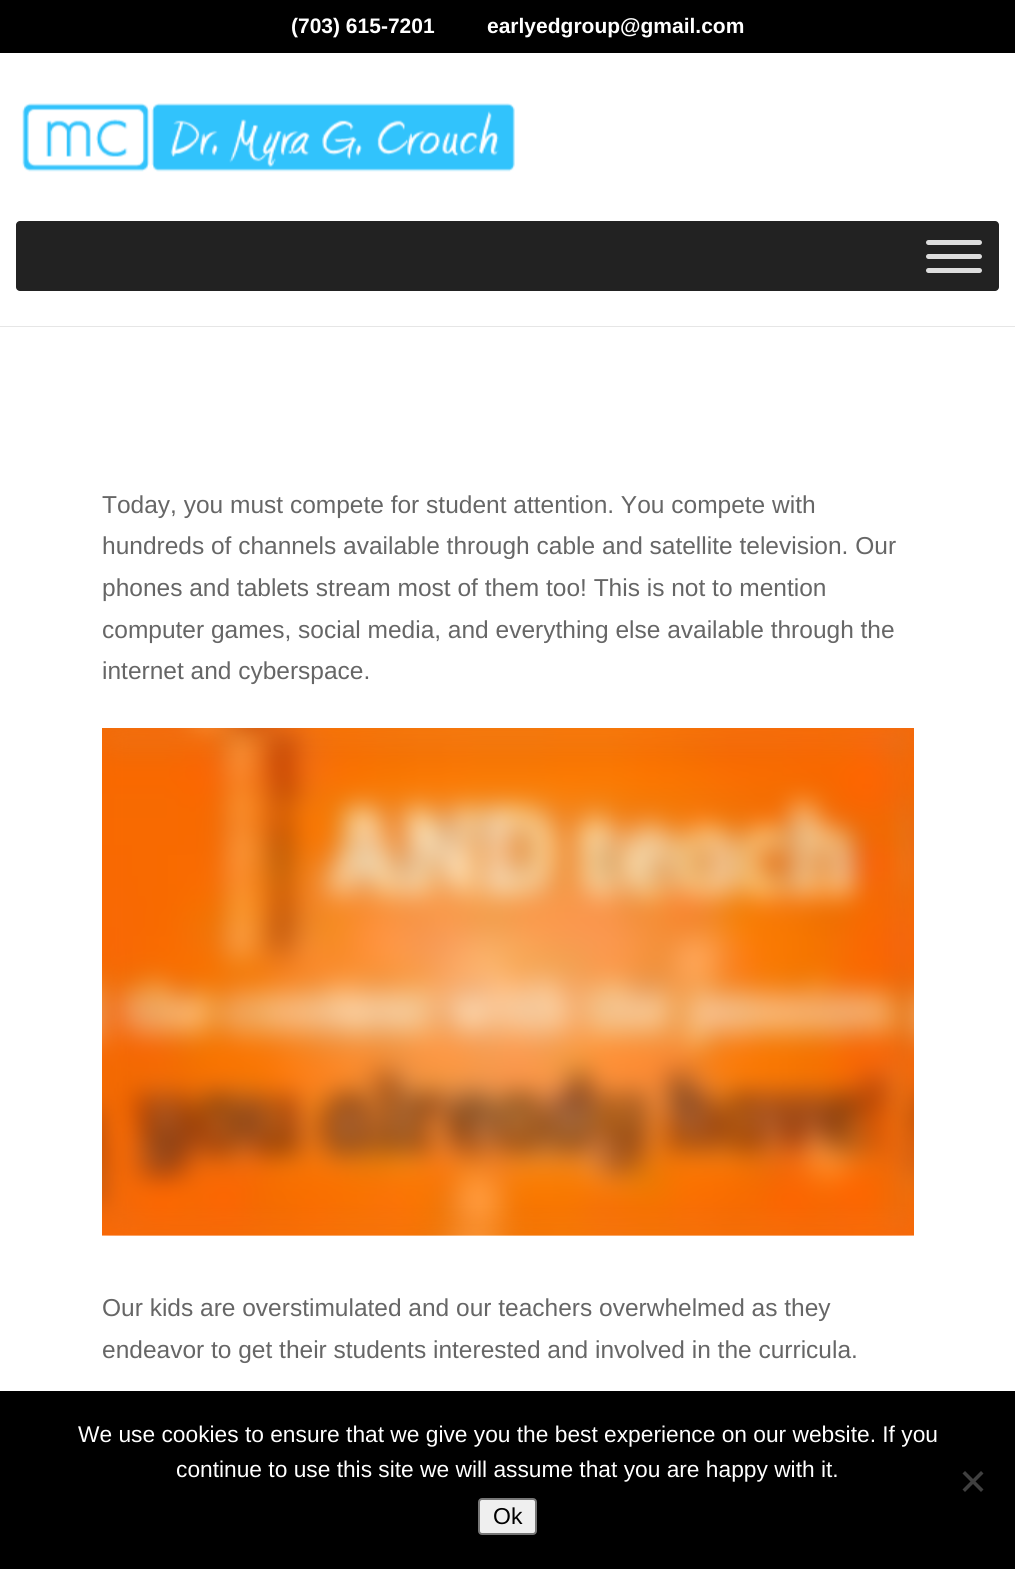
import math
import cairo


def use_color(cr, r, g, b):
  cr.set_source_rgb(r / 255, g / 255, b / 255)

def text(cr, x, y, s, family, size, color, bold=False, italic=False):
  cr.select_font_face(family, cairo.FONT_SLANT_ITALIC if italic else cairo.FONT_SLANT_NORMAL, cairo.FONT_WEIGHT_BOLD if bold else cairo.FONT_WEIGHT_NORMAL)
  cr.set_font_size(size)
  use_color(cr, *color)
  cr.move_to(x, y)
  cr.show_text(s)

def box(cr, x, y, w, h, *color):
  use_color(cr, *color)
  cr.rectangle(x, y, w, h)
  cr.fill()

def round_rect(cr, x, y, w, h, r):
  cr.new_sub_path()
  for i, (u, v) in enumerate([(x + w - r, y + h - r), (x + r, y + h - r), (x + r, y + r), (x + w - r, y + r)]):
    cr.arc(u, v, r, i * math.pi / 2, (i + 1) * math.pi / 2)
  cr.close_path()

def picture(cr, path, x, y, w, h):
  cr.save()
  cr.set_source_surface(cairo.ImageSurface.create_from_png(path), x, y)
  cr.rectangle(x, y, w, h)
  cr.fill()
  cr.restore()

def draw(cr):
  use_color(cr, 255, 255, 255)
  cr.paint()
  box(cr, 0, 0, 1015, 53, 0, 0, 0)
  box(cr, 0, 326, 1015, 1, 230, 230, 230)
  picture(cr, "img_01.png", 22, 103, 493, 69)
  use_color(cr, 34, 34, 34)
  round_rect(cr, 16, 221, 983, 70, 4)
  cr.fill()
  use_color(cr, 221, 221, 221)
  round_rect(cr, 926, 240, 56, 5, 2.5)
  cr.fill()
  round_rect(cr, 926, 254, 56, 5, 2.5)
  cr.fill()
  round_rect(cr, 926, 268, 56, 5, 2.5)
  cr.fill()
  picture(cr, "img_02.png", 102, 728, 812, 508)
  box(cr, 0, 1391, 1015, 178, 0, 0, 0)
  use_color(cr, 64, 64, 64)
  cr.new_path()
  cr.move_to(981, 1471)
  cr.line_to(983.5, 1473.5)
  cr.line_to(965, 1492)
  cr.line_to(962.5, 1489.5)
  cr.close_path()
  cr.fill()
  cr.new_path()
  cr.move_to(962.5, 1473.5)
  cr.line_to(965, 1471)
  cr.line_to(983.5, 1489.5)
  cr.line_to(981, 1492)
  cr.close_path()
  cr.fill()
  use_color(cr, 239, 239, 239)
  round_rect(cr, 479, 1499, 57, 35, 3)
  cr.fill_preserve()
  use_color(cr, 118, 118, 118)
  cr.stroke()
  text(cr, 291, 33, "(703) 615-7201", "Liberation Sans", 21, (255, 255, 255), bold=True)
  text(cr, 487, 33, "earlyedgroup@gmail.com", "Liberation Sans", 21, (255, 255, 255), bold=True)
  text(cr, 102, 513, "Today, you must compete for student attention. You compete with", "Liberation Sans", 24.5, (102, 102, 102))
  text(cr, 102, 554, "hundreds of channels available through cable and satellite television. Our", "Liberation Sans", 24.5, (102, 102, 102))
  text(cr, 102, 596, "phones and tablets stream most of them too! This is not to mention", "Liberation Sans", 24.5, (102, 102, 102))
  text(cr, 102, 638, "computer games, social media, and everything else available through the", "Liberation Sans", 24.5, (102, 102, 102))
  text(cr, 102, 679, "internet and cyberspace.", "Liberation Sans", 24.5, (102, 102, 102))
  text(cr, 102, 1316, "Our kids are overstimulated and our teachers overwhelmed as they", "Liberation Sans", 24.5, (102, 102, 102))
  text(cr, 102, 1358, "endeavor to get their students interested and involved in the curricula.", "Liberation Sans", 24.5, (102, 102, 102))
  text(cr, 78, 1442, "We use cookies to ensure that we give you the best experience on our website. If you", "Liberation Sans", 22.75, (255, 255, 255))
  text(cr, 176, 1477, "continue to use this site we will assume that you are happy with it.", "Liberation Sans", 22.75, (255, 255, 255))
  text(cr, 493, 1524, "Ok", "Liberation Sans", 23, (0, 0, 0))


surface = cairo.ImageSurface(cairo.FORMAT_RGB24, 1015, 1569)
cr = cairo.Context(surface)
options = cairo.FontOptions()
options.set_hint_metrics(cairo.HINT_METRICS_OFF)
options.set_hint_style(cairo.HINT_STYLE_NONE)
cr.set_font_options(options)
cr.set_miter_limit(4)
draw(cr)
surface.write_to_png("out.png")
